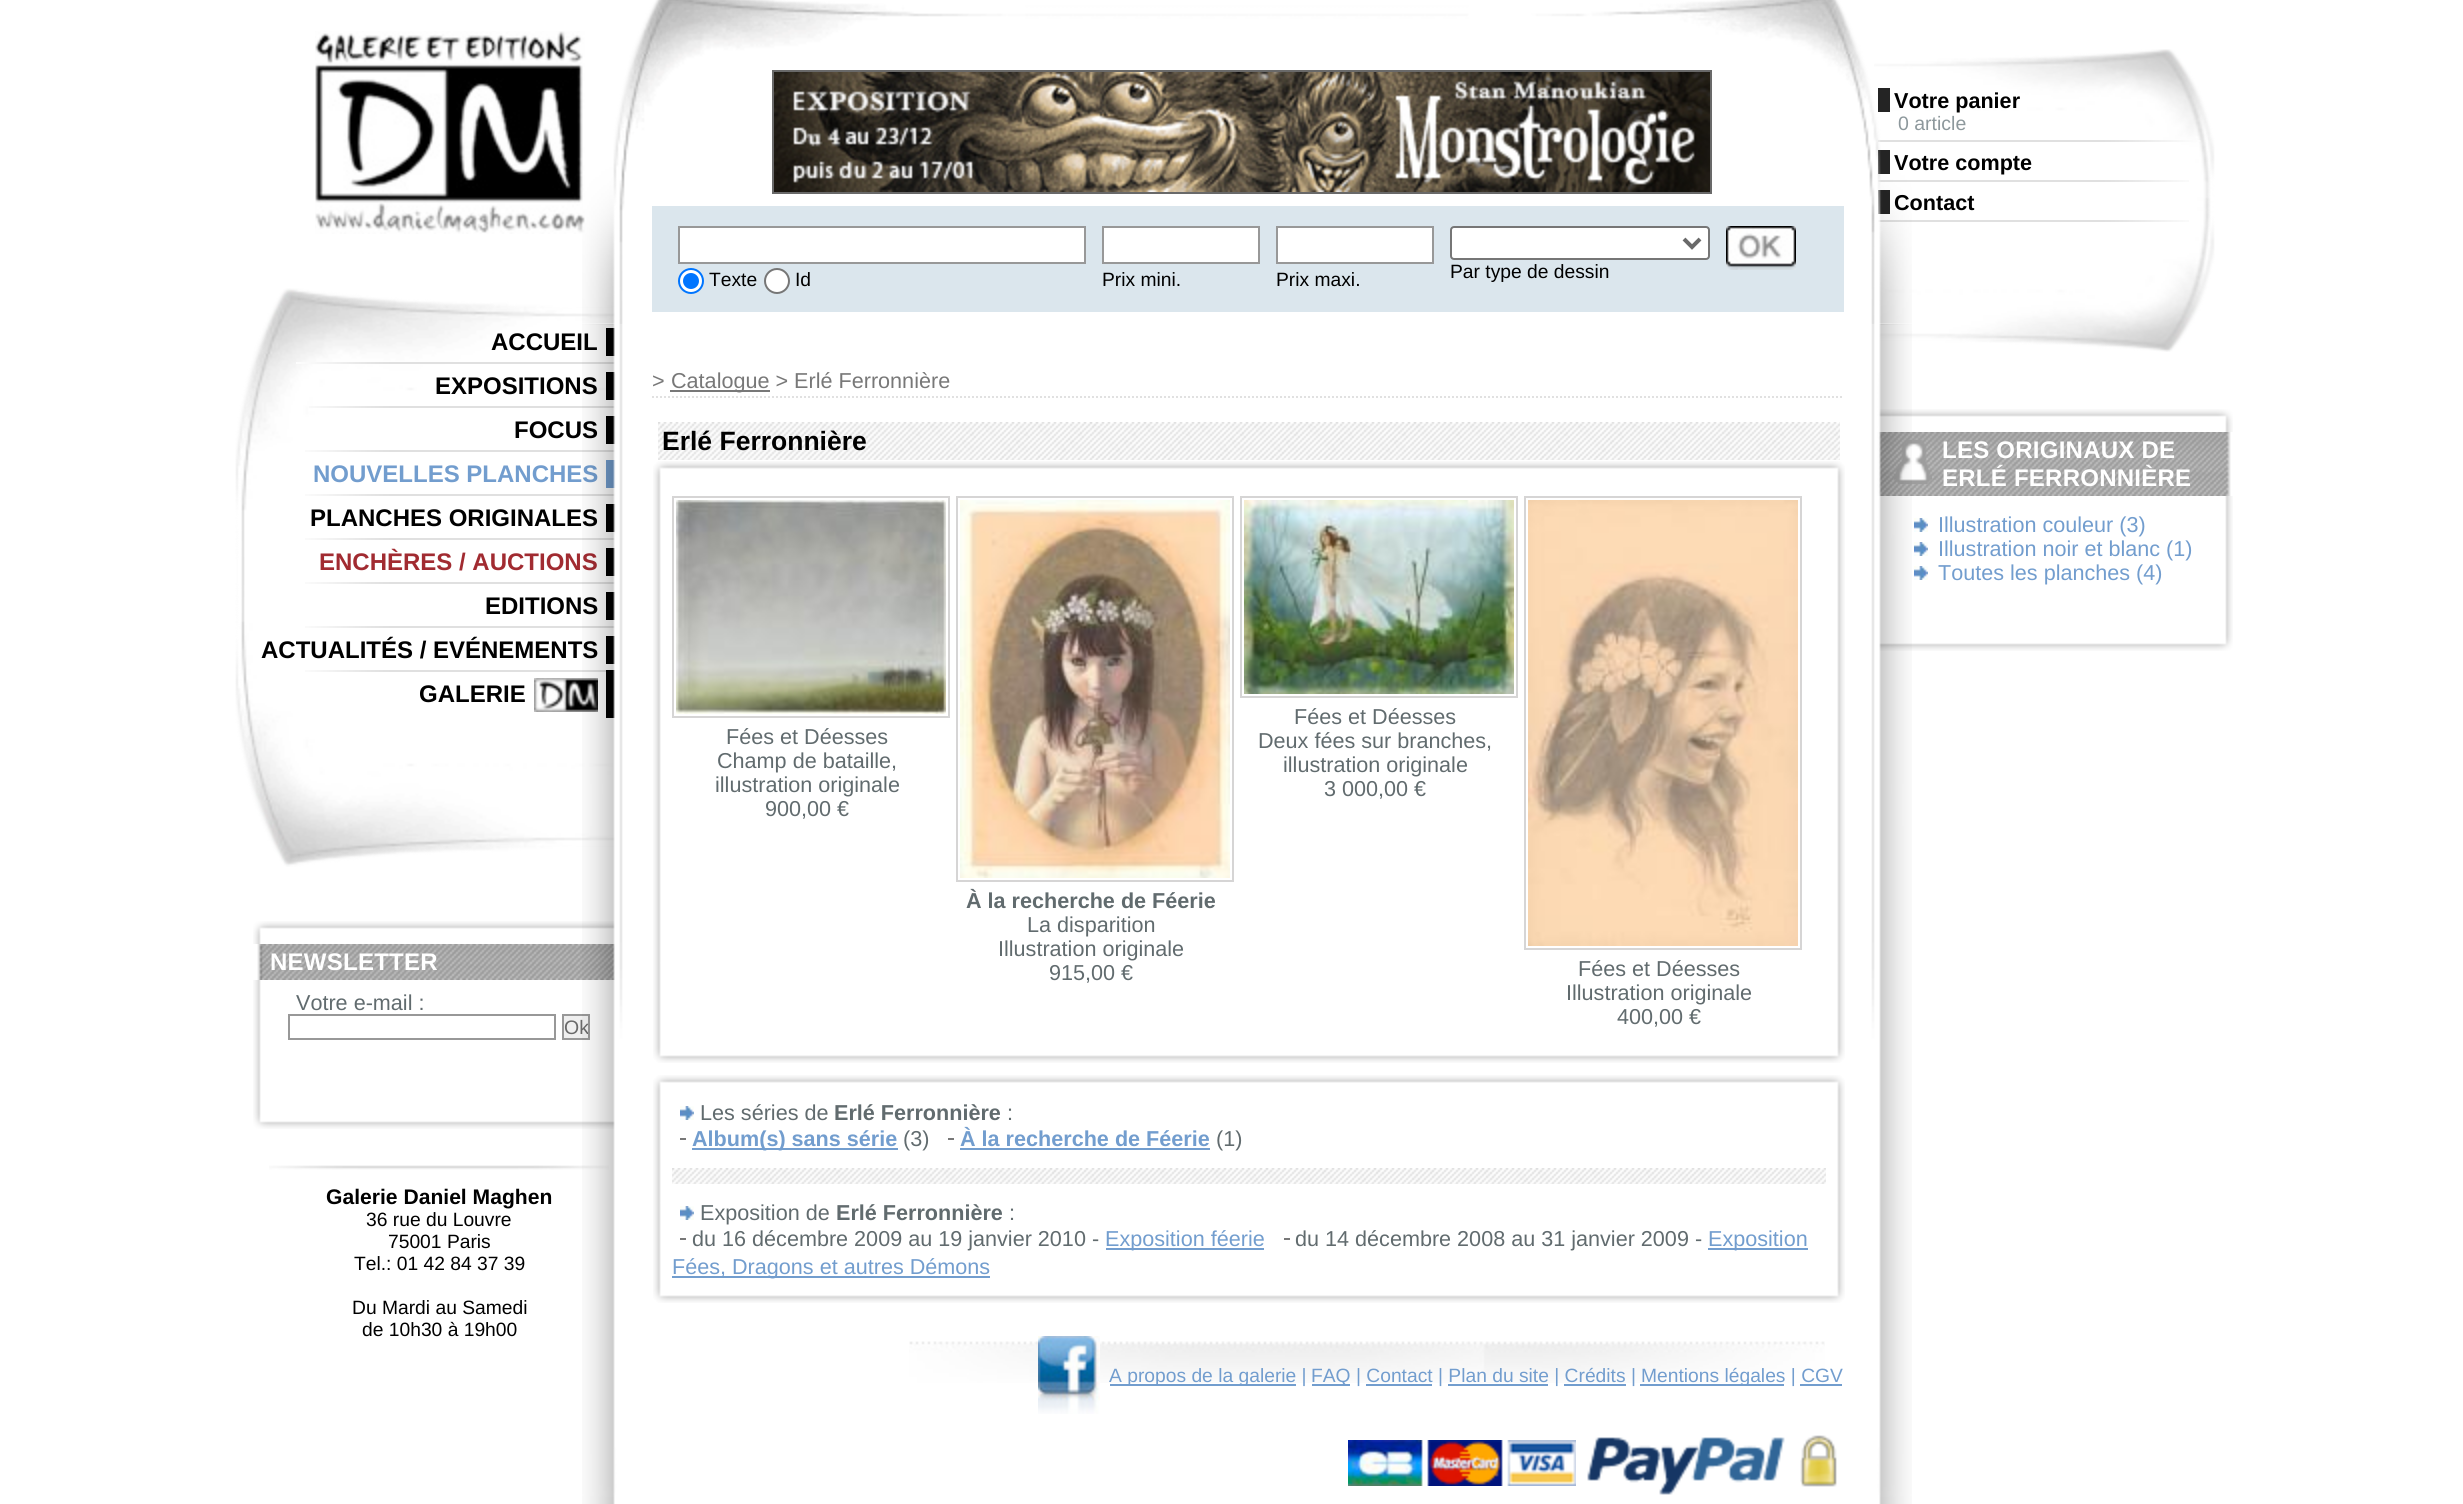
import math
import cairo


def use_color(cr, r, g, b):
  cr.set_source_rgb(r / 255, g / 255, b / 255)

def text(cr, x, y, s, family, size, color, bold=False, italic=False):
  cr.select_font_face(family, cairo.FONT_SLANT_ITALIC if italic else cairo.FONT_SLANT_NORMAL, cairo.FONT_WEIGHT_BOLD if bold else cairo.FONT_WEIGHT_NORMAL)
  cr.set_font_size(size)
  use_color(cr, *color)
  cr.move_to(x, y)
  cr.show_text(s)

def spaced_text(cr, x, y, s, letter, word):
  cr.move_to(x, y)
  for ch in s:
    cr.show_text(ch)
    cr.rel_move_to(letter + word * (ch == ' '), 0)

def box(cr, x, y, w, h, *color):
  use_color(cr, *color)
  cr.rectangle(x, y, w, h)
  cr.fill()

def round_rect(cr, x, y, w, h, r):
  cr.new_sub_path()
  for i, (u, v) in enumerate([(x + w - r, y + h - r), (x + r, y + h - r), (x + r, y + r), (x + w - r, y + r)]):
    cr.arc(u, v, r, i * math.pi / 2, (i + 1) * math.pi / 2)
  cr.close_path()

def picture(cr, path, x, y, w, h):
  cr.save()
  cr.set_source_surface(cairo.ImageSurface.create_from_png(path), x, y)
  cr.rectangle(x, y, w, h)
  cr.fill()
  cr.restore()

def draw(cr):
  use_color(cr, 255, 255, 255)
  cr.paint()
  picture(cr, "img_01.png", 315, 31, 270, 203)
  picture(cr, "img_02.png", 235, 288, 388, 579)
  picture(cr, "img_03.png", 296, 362, 319, 2)
  box(cr, 606, 328, 9, 28, 0, 0, 0)
  picture(cr, "img_04.png", 309, 406, 307, 2)
  box(cr, 606, 372, 10, 28, 0, 0, 0)
  picture(cr, "img_05.png", 305, 450, 311, 2)
  box(cr, 606, 416, 10, 28, 0, 0, 0)
  picture(cr, "img_05.png", 305, 494, 311, 2)
  box(cr, 606, 460, 10, 28, 114, 157, 206)
  picture(cr, "img_06.png", 305, 538, 310, 2)
  box(cr, 606, 504, 10, 28, 0, 0, 0)
  picture(cr, "img_06.png", 305, 582, 310, 2)
  box(cr, 606, 548, 9, 28, 0, 0, 0)
  picture(cr, "img_06.png", 305, 626, 310, 2)
  box(cr, 606, 592, 9, 28, 0, 0, 0)
  picture(cr, "img_07.png", 305, 670, 301, 2)
  box(cr, 606, 636, 9, 28, 0, 0, 0)
  box(cr, 606, 670, 9, 48, 0, 0, 0)
  picture(cr, "img_08.png", 534, 678, 64, 34)
  picture(cr, "img_09.png", 253, 921, 362, 23)
  picture(cr, "img_10.png", 257, 944, 358, 36)
  picture(cr, "img_11.png", 253, 980, 362, 149)
  cr.rectangle(289, 1015, 266, 24)
  use_color(cr, 152, 152, 152)
  cr.stroke()
  use_color(cr, 239, 239, 239)
  cr.rectangle(563, 1015, 26, 24)
  cr.fill_preserve()
  use_color(cr, 152, 152, 152)
  cr.stroke()
  picture(cr, "img_12.png", 269, 1165, 340, 5)
  picture(cr, "img_32.png", 1874, 49, 341, 303)
  picture(cr, "img_33.png", 1878, 140, 323, 2)
  box(cr, 1878, 88, 12, 24, 36, 36, 36)
  picture(cr, "img_34.png", 1878, 180, 311, 2)
  box(cr, 1878, 150, 12, 24, 36, 36, 36)
  picture(cr, "img_34.png", 1878, 220, 311, 2)
  box(cr, 1878, 190, 12, 24, 36, 36, 36)
  picture(cr, "img_35.png", 1877, 409, 356, 23)
  picture(cr, "img_36.png", 1877, 432, 354, 64)
  picture(cr, "img_37.png", 1894, 440, 38, 44)
  picture(cr, "img_38.png", 1877, 496, 356, 155)
  picture(cr, "img_25.png", 1914, 518, 14, 14)
  picture(cr, "img_25.png", 1914, 542, 14, 14)
  picture(cr, "img_25.png", 1914, 566, 14, 14)
  text(cr, 491, 350, "ACCUEIL", "Liberation Sans", 24, (0, 0, 0), bold=True)
  text(cr, 435, 394, "EXPOSITIONS", "Liberation Sans", 24, (0, 0, 0), bold=True)
  text(cr, 514, 438, "FOCUS", "Liberation Sans", 24, (0, 0, 0), bold=True)
  text(cr, 313, 482, "NOUVELLES PLANCHES", "Liberation Sans", 24, (114, 157, 206), bold=True)
  text(cr, 310, 526, "PLANCHES ORIGINALES", "Liberation Sans", 24, (0, 0, 0), bold=True)
  text(cr, 319, 570, "ENCHÈRES / AUCTIONS", "Liberation Sans", 24, (161, 43, 49), bold=True)
  text(cr, 485, 614, "EDITIONS", "Liberation Sans", 24, (0, 0, 0), bold=True)
  text(cr, 261, 658, "ACTUALITÉS / EVÉNEMENTS", "Liberation Sans", 24, (0, 0, 0), bold=True)
  text(cr, 419, 702, "GALERIE", "Liberation Sans", 24, (0, 0, 0), bold=True)
  use_color(cr, 255, 255, 255)
  spaced_text(cr, 270, 970, "NEWSLETTER", 0.25, 0)
  text(cr, 296, 1010, "Votre e-mail :", "Liberation Sans", 21.6, (97, 107, 110))
  cr.save()
  cr.rectangle(564, 1016, 24, 22)
  cr.clip()
  text(cr, 564, 1034, "Ok", "Liberation Sans", 19.5, (105, 105, 105))
  cr.restore()
  text(cr, 326, 1204, "Galerie Daniel Maghen", "Liberation Sans", 21.1, (0, 0, 0), bold=True)
  text(cr, 366, 1226, "36 rue du Louvre", "Liberation Sans", 19.25, (0, 0, 0))
  text(cr, 388, 1248, "75001 Paris", "Liberation Sans", 19.25, (0, 0, 0))
  text(cr, 354, 1270, "Tel.: 01 42 84 37 39", "Liberation Sans", 19.25, (0, 0, 0))
  text(cr, 352, 1314, "Du Mardi au Samedi", "Liberation Sans", 19.25, (0, 0, 0))
  text(cr, 362, 1336, "de 10h30 à 19h00", "Liberation Sans", 19.25, (0, 0, 0))
  text(cr, 1894, 108, "Votre panier", "Liberation Sans", 21.6, (0, 0, 0), bold=True)
  text(cr, 1898, 130, "0 article", "Liberation Sans", 19.5, (141, 152, 156))
  text(cr, 1894, 170, "Votre compte", "Liberation Sans", 21.6, (0, 0, 0), bold=True)
  text(cr, 1894, 210, "Contact", "Liberation Sans", 21.6, (0, 0, 0), bold=True)
  picture(cr, "img_13.png", 582, 0, 1330, 326)
  picture(cr, "img_16.png", 582, 324, 1330, 1180)
  picture(cr, "img_19.png", 653, 512, 1192, 551)
  text(cr, 1617, 1024, "400,00 €", "Liberation Sans", 21.6, (97, 107, 110))
  text(cr, 1566, 1000, "Illustration originale", "Liberation Sans", 21.6, (97, 107, 110))
  text(cr, 1578, 976, "Fées et Déesses", "Liberation Sans", 21.6, (97, 107, 110))
  picture(cr, "img_18.png", 653, 461, 1192, 51)
  cr.rectangle(1525, 497, 276, 452)
  use_color(cr, 214, 213, 213)
  cr.stroke()
  picture(cr, "img_23.png", 1528, 500, 270, 446)
  text(cr, 1324, 796, "3 000,00 €", "Liberation Sans", 21.6, (97, 107, 110))
  text(cr, 1283, 772, "illustration originale", "Liberation Sans", 21.6, (97, 107, 110))
  text(cr, 1258, 748, "Deux fées sur branches,", "Liberation Sans", 21.6, (97, 107, 110))
  text(cr, 1294, 724, "Fées et Déesses", "Liberation Sans", 21.6, (97, 107, 110))
  cr.rectangle(1241, 497, 276, 200)
  use_color(cr, 214, 213, 213)
  cr.stroke()
  picture(cr, "img_21.png", 1244, 500, 270, 194)
  text(cr, 1049, 980, "915,00 €", "Liberation Sans", 21.6, (97, 107, 110))
  text(cr, 998, 956, "Illustration originale", "Liberation Sans", 21.6, (97, 107, 110))
  text(cr, 1027, 932, "La disparition", "Liberation Sans", 21.6, (97, 107, 110))
  text(cr, 966, 908, "À la recherche de Féerie", "Liberation Sans", 21.6, (97, 107, 110), bold=True)
  cr.rectangle(957, 497, 276, 384)
  use_color(cr, 214, 213, 213)
  cr.stroke()
  picture(cr, "img_22.png", 960, 500, 270, 378)
  text(cr, 765, 816, "900,00 €", "Liberation Sans", 21.6, (97, 107, 110))
  text(cr, 715, 792, "illustration originale", "Liberation Sans", 21.6, (97, 107, 110))
  text(cr, 717, 768, "Champ de bataille,", "Liberation Sans", 21.6, (97, 107, 110))
  text(cr, 726, 744, "Fées et Déesses", "Liberation Sans", 21.6, (97, 107, 110))
  cr.rectangle(673, 497, 276, 220)
  use_color(cr, 214, 213, 213)
  cr.stroke()
  picture(cr, "img_20.png", 676, 500, 270, 214)
  picture(cr, "img_31.png", 1800, 1435, 37, 52)
  picture(cr, "img_30.png", 1587, 1437, 198, 58)
  picture(cr, "img_29.png", 1348, 1440, 228, 46)
  box(cr, 1800, 1384, 42, 2, 114, 157, 206)
  box(cr, 1640, 1384, 144, 2, 114, 157, 206)
  picture(cr, "img_27.png", 909, 1341, 916, 42)
  text(cr, 1641, 1382, "Mentions légales | CGV", "Liberation Sans", 19.25, (114, 157, 206))
  box(cr, 1564, 1384, 62, 2, 114, 157, 206)
  box(cr, 1448, 1384, 100, 2, 114, 157, 206)
  box(cr, 1366, 1384, 66, 2, 114, 157, 206)
  box(cr, 1312, 1384, 38, 2, 114, 157, 206)
  text(cr, 1311, 1382, "FAQ | Contact | Plan du site | Crédits |", "Liberation Sans", 19.25, (114, 157, 206))
  box(cr, 1110, 1384, 186, 2, 114, 157, 206)
  text(cr, 1109, 1382, "A propos de la galerie |", "Liberation Sans", 19.25, (114, 157, 206))
  picture(cr, "img_28.png", 1038, 1336, 62, 78)
  picture(cr, "img_24.png", 653, 1126, 1192, 177)
  box(cr, 672, 1276, 318, 2, 114, 157, 206)
  text(cr, 672, 1274, "Fées, Dragons et autres Démons", "Liberation Sans", 21.6, (114, 157, 206))
  box(cr, 1708, 1248, 100, 2, 114, 157, 206)
  text(cr, 1708, 1246, "Exposition", "Liberation Sans", 21.6, (114, 157, 206))
  text(cr, 1295, 1246, "du 14 décembre 2008 au 31 janvier 2009 -", "Liberation Sans", 21.6, (97, 107, 110))
  box(cr, 1284, 1238, 6, 2, 120, 120, 120)
  box(cr, 1106, 1248, 158, 2, 114, 157, 206)
  text(cr, 1105, 1246, "Exposition féerie", "Liberation Sans", 21.6, (114, 157, 206))
  text(cr, 692, 1246, "du 16 décembre 2009 au 19 janvier 2010 -", "Liberation Sans", 21.6, (97, 107, 110))
  box(cr, 680, 1238, 6, 2, 120, 120, 120)
  text(cr, 1009, 1220, ":", "Liberation Sans", 21.6, (97, 107, 110))
  text(cr, 836, 1220, "Erlé Ferronnière", "Liberation Sans", 21.6, (97, 107, 110), bold=True)
  text(cr, 700, 1220, "Exposition de", "Liberation Sans", 21.6, (97, 107, 110))
  text(cr, 1216, 1146, "(1)", "Liberation Sans", 21.6, (97, 107, 110))
  text(cr, 960, 1146, "À la recherche de Féerie", "Liberation Sans", 21.6, (114, 157, 206), bold=True)
  box(cr, 960, 1148, 250, 2, 114, 157, 206)
  box(cr, 948, 1138, 6, 2, 120, 120, 120)
  text(cr, 903, 1146, "(3)", "Liberation Sans", 21.6, (97, 107, 110))
  box(cr, 692, 1148, 206, 2, 114, 157, 206)
  text(cr, 692, 1146, "Album(s) sans série", "Liberation Sans", 21.6, (114, 157, 206), bold=True)
  box(cr, 680, 1138, 6, 2, 120, 120, 120)
  picture(cr, "img_18.png", 653, 1075, 1192, 51)
  text(cr, 1007, 1120, ":", "Liberation Sans", 21.6, (97, 107, 110))
  text(cr, 834, 1120, "Erlé Ferronnière", "Liberation Sans", 21.6, (97, 107, 110), bold=True)
  text(cr, 700, 1120, "Les séries de", "Liberation Sans", 21.6, (97, 107, 110))
  picture(cr, "img_17.png", 658, 422, 1182, 38)
  text(cr, 662, 450, "Erlé Ferronnière", "Liberation Sans", 26.5, (0, 0, 0), bold=True)
  box(cr, 670, 390, 100, 2, 120, 120, 120)
  text(cr, 671, 388, "Catalogue > Erlé Ferronnière", "Liberation Sans", 21.6, (120, 120, 120))
  text(cr, 652, 388, ">", "Liberation Sans", 21.6, (120, 120, 120))
  cr.rectangle(773, 71, 938, 122)
  use_color(cr, 105, 105, 105)
  cr.stroke()
  picture(cr, "img_14.png", 774, 72, 936, 120)
  box(cr, 652, 206, 1192, 106, 219, 230, 237)
  picture(cr, "img_15.png", 1726, 226, 70, 44)
  text(cr, 1450, 278, "Par type de dessin", "Liberation Sans", 19.25, (0, 0, 0))
  use_color(cr, 255, 255, 255)
  round_rect(cr, 1451, 227, 258, 32, 3)
  cr.fill_preserve()
  use_color(cr, 118, 118, 118)
  cr.stroke()
  cr.new_path()
  cr.move_to(1684, 239)
  cr.line_to(1692, 247)
  cr.line_to(1700, 239)
  use_color(cr, 105, 105, 105)
  cr.set_line_width(4)
  cr.stroke()
  text(cr, 1276, 286, "Prix maxi.", "Liberation Sans", 19.25, (0, 0, 0))
  use_color(cr, 255, 255, 255)
  cr.rectangle(1277, 227, 156, 36)
  cr.fill_preserve()
  use_color(cr, 152, 152, 152)
  cr.set_line_width(2)
  cr.stroke()
  text(cr, 1102, 286, "Prix mini.", "Liberation Sans", 19.25, (0, 0, 0))
  use_color(cr, 255, 255, 255)
  cr.rectangle(1103, 227, 156, 36)
  cr.fill_preserve()
  use_color(cr, 152, 152, 152)
  cr.stroke()
  text(cr, 795, 286, "Id", "Liberation Sans", 19.25, (0, 0, 0))
  use_color(cr, 255, 255, 255)
  cr.new_path()
  cr.arc(777, 281, 12, 0, 2 * math.pi)
  cr.fill_preserve()
  use_color(cr, 118, 118, 118)
  cr.stroke()
  text(cr, 709, 286, "Texte", "Liberation Sans", 19.25, (0, 0, 0))
  use_color(cr, 255, 255, 255)
  cr.new_path()
  cr.arc(691, 281, 12, 0, 2 * math.pi)
  cr.fill_preserve()
  use_color(cr, 0, 117, 255)
  cr.stroke()
  cr.arc(691, 281, 8, 0, 2 * math.pi)
  cr.fill()
  use_color(cr, 255, 255, 255)
  cr.rectangle(679, 227, 406, 36)
  cr.fill_preserve()
  use_color(cr, 152, 152, 152)
  cr.stroke()
  picture(cr, "img_25.png", 680, 1206, 14, 14)
  picture(cr, "img_26.png", 672, 1168, 1154, 16)
  picture(cr, "img_25.png", 680, 1106, 14, 14)
  cr.new_path()
  cr.move_to(652, 397)
  cr.line_to(1842, 397)
  use_color(cr, 225, 225, 225)
  cr.set_dash([2, 2])
  cr.stroke()
  cr.select_font_face("Liberation Sans", cairo.FONT_SLANT_NORMAL, cairo.FONT_WEIGHT_BOLD)
  cr.set_font_size(24)
  use_color(cr, 255, 255, 255)
  spaced_text(cr, 1942, 458, "LES ORIGINAUX DE", 0.25, 0)
  spaced_text(cr, 1942, 486, "ERLÉ FERRONNIÈRE", 0.25, 0)
  text(cr, 1938, 532, "Illustration couleur (3)", "Liberation Sans", 21.6, (114, 157, 206))
  text(cr, 1938, 556, "Illustration noir et blanc (1)", "Liberation Sans", 21.6, (114, 157, 206))
  text(cr, 1938, 580, "Toutes les planches (4)", "Liberation Sans", 21.6, (114, 157, 206))


surface = cairo.ImageSurface(cairo.FORMAT_RGB24, 2463, 1504)
cr = cairo.Context(surface)
options = cairo.FontOptions()
options.set_hint_metrics(cairo.HINT_METRICS_OFF)
options.set_hint_style(cairo.HINT_STYLE_NONE)
cr.set_font_options(options)
cr.set_miter_limit(4)
draw(cr)
surface.write_to_png("out.png")
